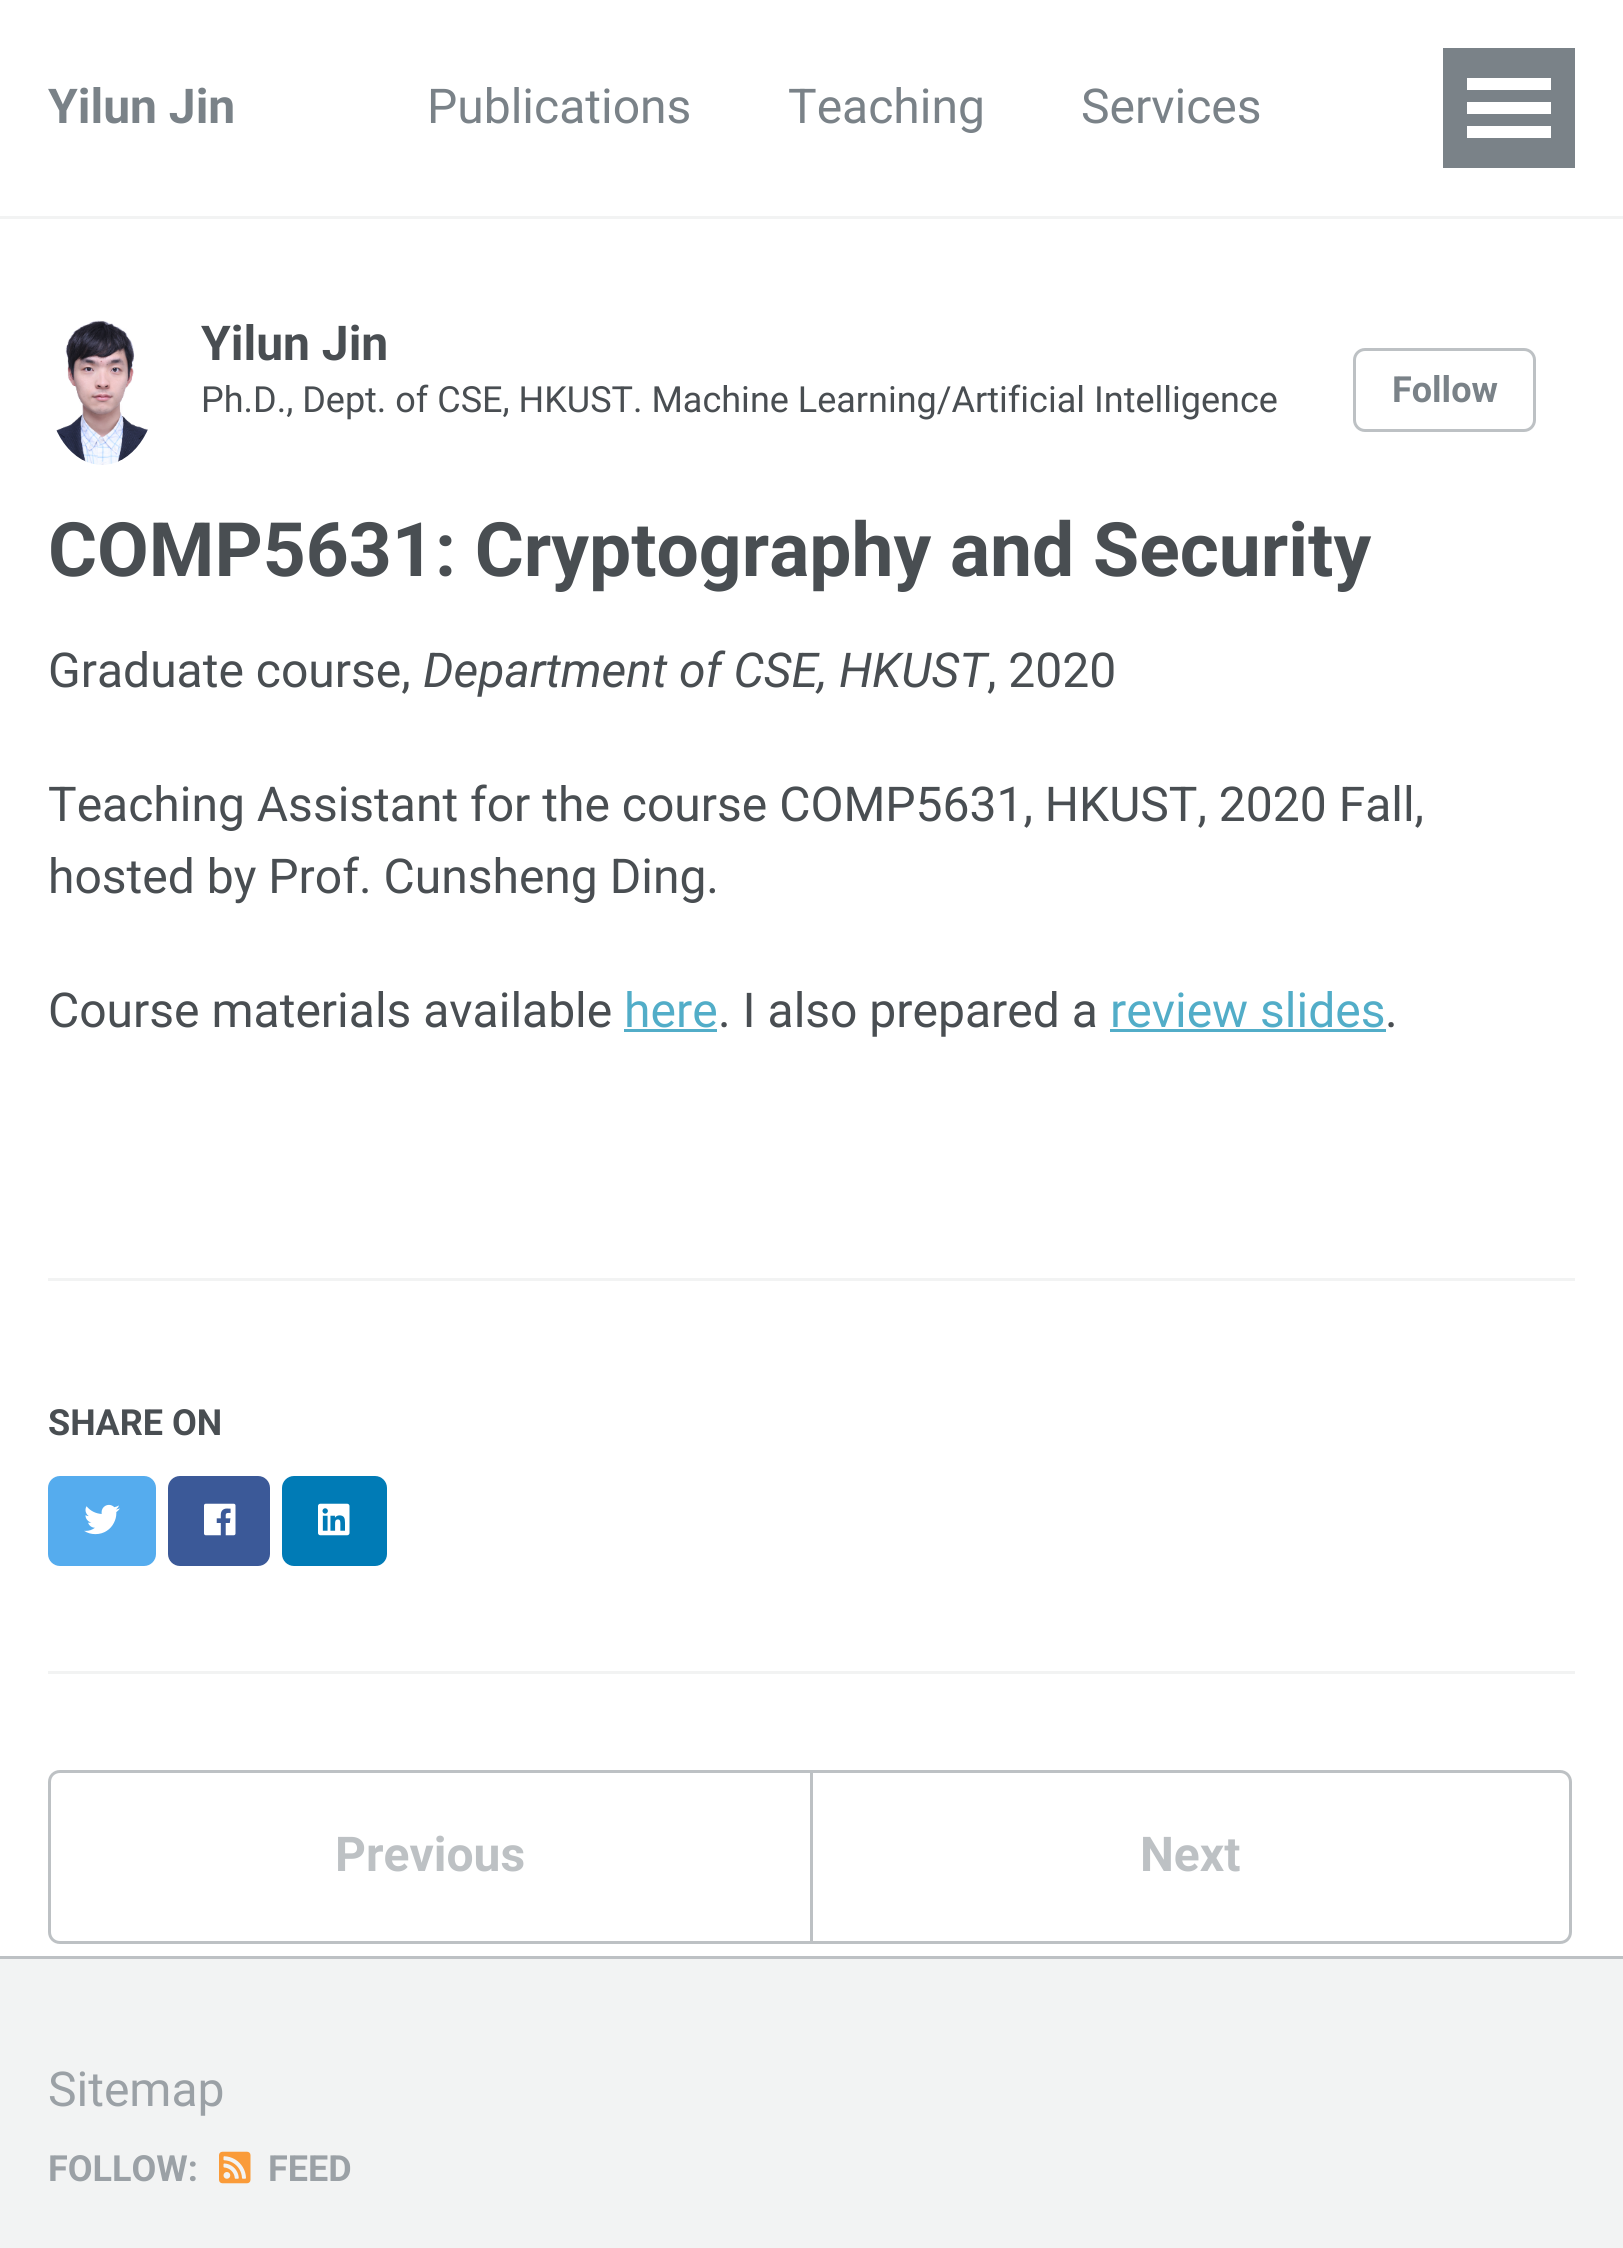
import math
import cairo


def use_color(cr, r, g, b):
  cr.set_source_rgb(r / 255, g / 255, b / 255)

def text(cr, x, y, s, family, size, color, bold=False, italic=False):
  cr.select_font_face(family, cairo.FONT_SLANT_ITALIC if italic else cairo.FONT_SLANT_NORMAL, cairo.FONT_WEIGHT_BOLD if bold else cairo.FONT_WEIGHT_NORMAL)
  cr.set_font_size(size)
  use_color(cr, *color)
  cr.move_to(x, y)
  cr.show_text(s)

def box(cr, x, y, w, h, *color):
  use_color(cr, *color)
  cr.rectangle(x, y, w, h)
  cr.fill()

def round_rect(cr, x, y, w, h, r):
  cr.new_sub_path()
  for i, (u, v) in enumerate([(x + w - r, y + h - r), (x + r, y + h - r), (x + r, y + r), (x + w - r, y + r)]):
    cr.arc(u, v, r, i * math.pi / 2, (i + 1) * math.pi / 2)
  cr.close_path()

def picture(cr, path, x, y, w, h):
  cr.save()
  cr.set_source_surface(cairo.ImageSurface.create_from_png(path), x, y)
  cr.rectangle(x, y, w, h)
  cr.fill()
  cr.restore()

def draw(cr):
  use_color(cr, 255, 255, 255)
  cr.paint()
  box(cr, 0, 216, 1623, 3, 242, 243, 243)
  box(cr, 1443, 48, 132, 120, 122, 130, 136)
  box(cr, 1467, 102, 84, 12, 255, 255, 255)
  box(cr, 1467, 78, 84, 12, 255, 255, 255)
  box(cr, 1467, 126, 84, 12, 255, 255, 255)
  picture(cr, "img_01.png", 56, 320, 92, 145)
  round_rect(cr, 1354.5, 349.5, 180, 81, 10.5)
  use_color(cr, 189, 193, 196)
  cr.set_line_width(3)
  cr.stroke()
  box(cr, 624, 1029, 93, 3, 82, 173, 200)
  box(cr, 1110, 1029, 276, 3, 82, 173, 200)
  box(cr, 48, 1278, 1527, 3, 242, 243, 243)
  use_color(cr, 85, 172, 238)
  round_rect(cr, 48, 1476, 108, 90, 12)
  cr.fill()
  picture(cr, "img_02.png", 84, 1504, 36, 31)
  use_color(cr, 59, 89, 152)
  round_rect(cr, 168, 1476, 102, 90, 12)
  cr.fill()
  picture(cr, "img_03.png", 204, 1503, 32, 33)
  use_color(cr, 0, 123, 182)
  round_rect(cr, 282, 1476, 105, 90, 12)
  cr.fill()
  picture(cr, "img_04.png", 318, 1503, 32, 33)
  box(cr, 48, 1671, 1527, 3, 242, 243, 243)
  cr.new_path()
  cr.move_to(60, 1771.5)
  cr.line_to(811.5, 1771.5)
  cr.line_to(811.5, 1942.5)
  cr.line_to(60, 1942.5)
  cr.curve_to(54, 1942.5, 49.5, 1938, 49.5, 1932)
  cr.line_to(49.5, 1782)
  cr.curve_to(49.5, 1776, 54, 1771.5, 60, 1771.5)
  cr.close_path()
  use_color(cr, 189, 193, 196)
  cr.stroke()
  cr.new_path()
  cr.move_to(811.5, 1771.5)
  cr.line_to(1560, 1771.5)
  cr.curve_to(1566, 1771.5, 1570.5, 1776, 1570.5, 1782)
  cr.line_to(1570.5, 1932)
  cr.curve_to(1570.5, 1938, 1566, 1942.5, 1560, 1942.5)
  cr.line_to(811.5, 1942.5)
  cr.close_path()
  cr.stroke()
  box(cr, 0, 1959, 1623, 289, 242, 243, 243)
  box(cr, 0, 1956, 1623, 3, 189, 193, 196)
  picture(cr, "img_05.png", 219, 2151, 32, 33)
  text(cr, 48, 123, "Yilun Jin", "Roboto", 48, (122, 130, 136), bold=True)
  text(cr, 427, 123, "Publications", "Roboto", 48, (122, 130, 136))
  text(cr, 788, 123, "Teaching", "Roboto", 48, (122, 130, 136))
  text(cr, 1081, 123, "Services", "Roboto", 48, (122, 130, 136))
  text(cr, 201, 360, "Yilun Jin", "Roboto", 48, (73, 78, 82), bold=True)
  text(cr, 201, 412, "Ph.D., Dept. of CSE, HKUST. Machine Learning/Artificial Intelligence", "Roboto", 36, (73, 78, 82))
  text(cr, 1392, 402, "Follow", "Roboto", 36, (122, 130, 136), bold=True)
  text(cr, 48, 576, "COMP5631: Cryptography and Security", "Roboto", 75, (73, 78, 82), bold=True)
  text(cr, 48, 687, "Graduate course,", "Roboto", 48, (73, 78, 82))
  text(cr, 423, 687, "Department of CSE, HKUST", "Roboto", 48, (73, 78, 82), italic=True)
  text(cr, 987, 687, ", 2020", "Roboto", 48, (73, 78, 82))
  text(cr, 48, 821, "Teaching Assistant for the course COMP5631, HKUST, 2020 Fall,", "Roboto", 48, (73, 78, 82))
  text(cr, 48, 893, "hosted by Prof. Cunsheng Ding.", "Roboto", 48, (73, 78, 82))
  text(cr, 48, 1027, "Course materials available", "Roboto", 48, (73, 78, 82))
  text(cr, 624, 1027, "here", "Roboto", 48, (82, 173, 200))
  text(cr, 718, 1027, ". I also prepared a", "Roboto", 48, (73, 78, 82))
  text(cr, 1110, 1027, "review slides", "Roboto", 48, (82, 173, 200))
  text(cr, 1385, 1027, ".", "Roboto", 48, (73, 78, 82))
  text(cr, 48, 1435, "SHARE ON", "Roboto", 36, (73, 78, 82), bold=True)
  text(cr, 335, 1871, "Previous", "Roboto", 48, (189, 193, 196), bold=True)
  text(cr, 1140, 1871, "Next", "Roboto", 48, (189, 193, 196), bold=True)
  text(cr, 48, 2106, "Sitemap", "Roboto", 48, (155, 161, 166))
  text(cr, 48, 2181, "FOLLOW:", "Roboto", 36, (155, 161, 166), bold=True)
  text(cr, 268, 2181, "FEED", "Roboto", 36, (155, 161, 166), bold=True)


surface = cairo.ImageSurface(cairo.FORMAT_RGB24, 1623, 2248)
cr = cairo.Context(surface)
options = cairo.FontOptions()
options.set_hint_metrics(cairo.HINT_METRICS_OFF)
options.set_hint_style(cairo.HINT_STYLE_NONE)
cr.set_font_options(options)
cr.set_miter_limit(4)
draw(cr)
surface.write_to_png("out.png")
